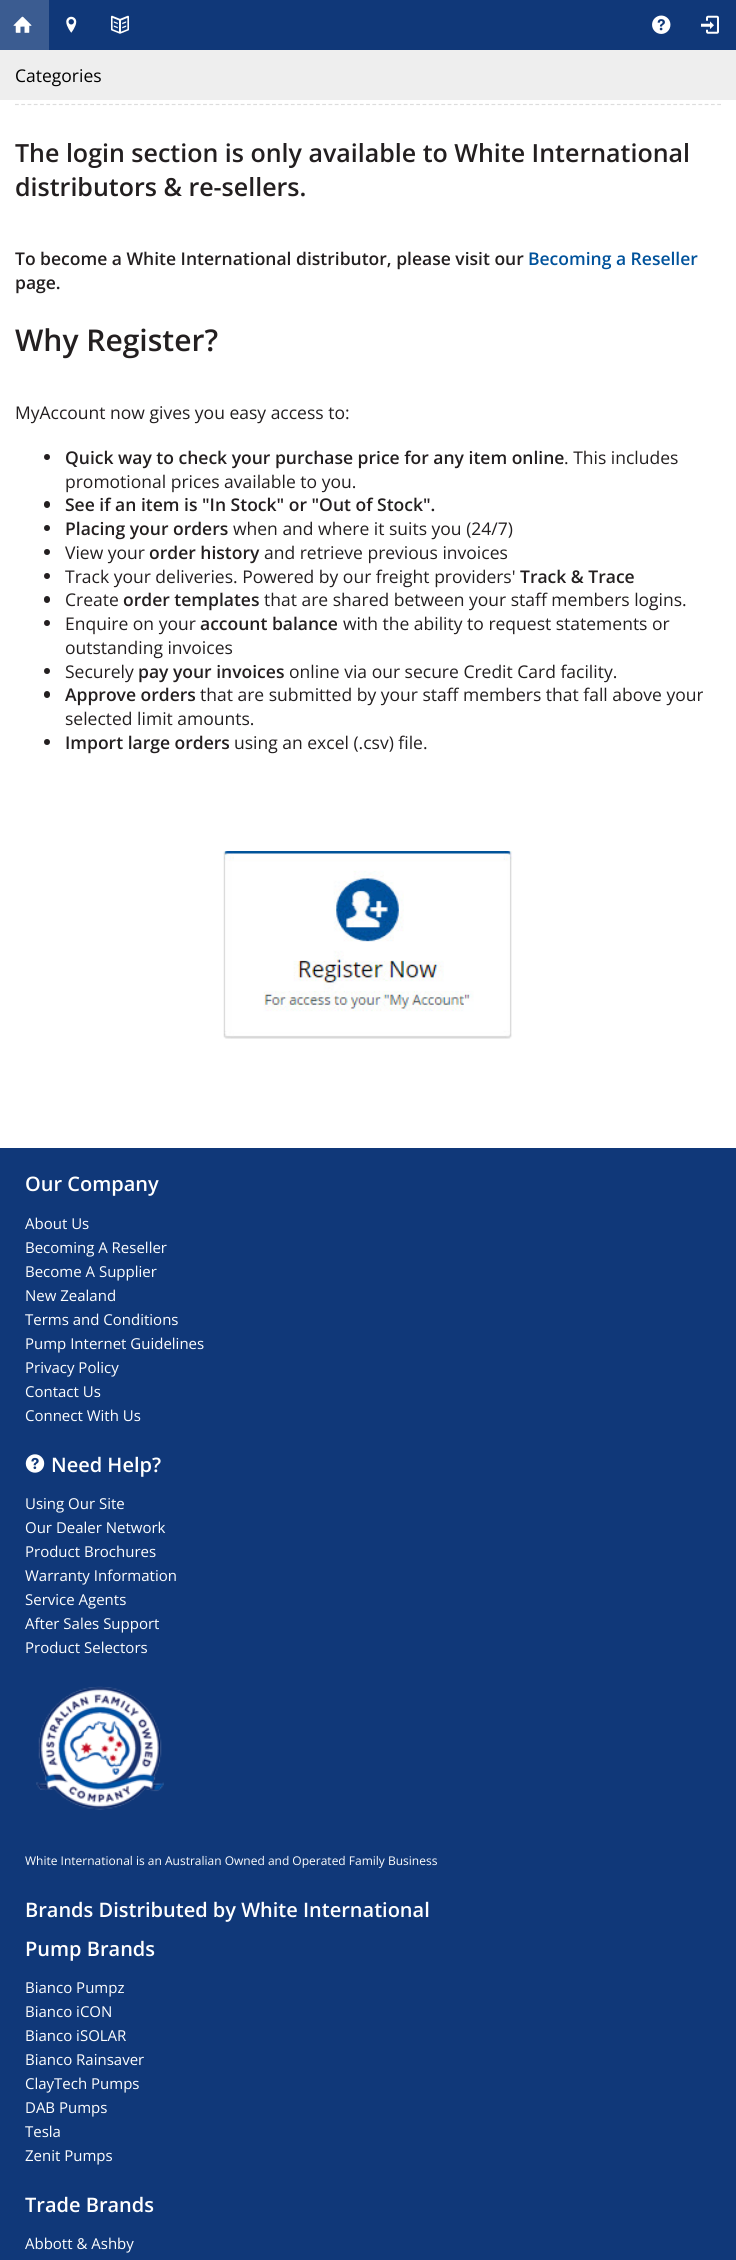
import math
import cairo


def use_color(cr, r, g, b):
  cr.set_source_rgb(r / 255, g / 255, b / 255)

def text(cr, x, y, s, family, size, color, bold=False, italic=False):
  cr.select_font_face(family, cairo.FONT_SLANT_ITALIC if italic else cairo.FONT_SLANT_NORMAL, cairo.FONT_WEIGHT_BOLD if bold else cairo.FONT_WEIGHT_NORMAL)
  cr.set_font_size(size)
  use_color(cr, *color)
  cr.move_to(x, y)
  cr.show_text(s)

def box(cr, x, y, w, h, *color):
  use_color(cr, *color)
  cr.rectangle(x, y, w, h)
  cr.fill()

def round_rect(cr, x, y, w, h, r):
  cr.new_sub_path()
  for i, (u, v) in enumerate([(x + w - r, y + h - r), (x + r, y + h - r), (x + r, y + r), (x + w - r, y + r)]):
    cr.arc(u, v, r, i * math.pi / 2, (i + 1) * math.pi / 2)
  cr.close_path()

def picture(cr, path, x, y, w, h):
  cr.save()
  cr.set_source_surface(cairo.ImageSurface.create_from_png(path), x, y)
  cr.rectangle(x, y, w, h)
  cr.fill()
  cr.restore()

def draw(cr):
  use_color(cr, 255, 255, 255)
  cr.paint()
  box(cr, 49, 0, 687, 50, 16, 56, 121)
  box(cr, 0, 0, 49, 50, 59, 92, 145)
  picture(cr, "img_01.png", 13, 16, 19, 17)
  picture(cr, "img_02.png", 66, 16, 11, 17)
  picture(cr, "img_03.png", 110, 15, 19, 19)
  picture(cr, "img_04.png", 652, 15, 19, 19)
  picture(cr, "img_05.png", 701, 15, 18, 19)
  box(cr, 0, 50, 736, 50, 238, 238, 238)
  cr.new_path()
  cr.move_to(15, 104.5)
  cr.line_to(721, 104.5)
  use_color(cr, 221, 221, 221)
  cr.set_line_width(1.2)
  cr.set_dash([3.75, 2.52])
  cr.stroke()
  use_color(cr, 35, 31, 32)
  cr.arc(47, 457, 3, 0, 2 * math.pi)
  cr.fill()
  round_rect(cr, 44, 501, 6, 7, 3)
  cr.fill()
  cr.arc(47, 528, 3, 0, 2 * math.pi)
  cr.fill()
  cr.arc(47, 552, 3, 0, 2 * math.pi)
  cr.fill()
  cr.arc(47, 576, 3, 0, 2 * math.pi)
  cr.fill()
  round_rect(cr, 44, 596, 6, 7, 3)
  cr.fill()
  cr.arc(47, 623, 3, 0, 2 * math.pi)
  cr.fill()
  cr.arc(47, 671, 3, 0, 2 * math.pi)
  cr.fill()
  round_rect(cr, 44, 691, 6, 7, 3)
  cr.fill()
  cr.arc(47, 742, 3, 0, 2 * math.pi)
  cr.fill()
  picture(cr, "img_06.png", 223, 851, 290, 188)
  box(cr, 0, 1148, 736, 1112, 16, 56, 121)
  picture(cr, "img_07.png", 25, 1454, 20, 19)
  picture(cr, "img_08.png", 36, 1686, 128, 124)
  text(cr, 15, 82, "Categories", "Open Sans", 17.5, (0, 0, 0))
  text(cr, 15, 162, "The login section is only available to White International", "Open Sans SemiBold", 25, (35, 31, 32))
  text(cr, 15, 196, "distributors & re-sellers.", "Open Sans SemiBold", 25, (35, 31, 32))
  text(cr, 15, 265, "To become a White International distributor, please visit our", "Open Sans SemiBold", 17.5, (35, 31, 32))
  text(cr, 528, 265, "Becoming a Reseller", "Open Sans SemiBold", 17.5, (0, 82, 155))
  text(cr, 15, 289, "page.", "Open Sans SemiBold", 17.5, (35, 31, 32))
  text(cr, 15, 351, "Why Register?", "Open Sans SemiBold", 30, (35, 31, 32))
  text(cr, 15, 419, "MyAccount now gives you easy access to:", "Open Sans", 17.5, (35, 31, 32))
  text(cr, 65, 464, "Quick way to check your purchase price for any item online", "Open Sans SemiBold", 17.5, (35, 31, 32))
  text(cr, 564, 464, ". This includes", "Open Sans", 17.5, (35, 31, 32))
  text(cr, 65, 488, "promotional prices available to you.", "Open Sans", 17.5, (35, 31, 32))
  text(cr, 65, 511, "See if an item is \"In Stock\" or \"Out of Stock\".", "Open Sans SemiBold", 17.5, (35, 31, 32))
  text(cr, 65, 535, "Placing your orders", "Open Sans SemiBold", 17.5, (35, 31, 32))
  text(cr, 233, 535, "when and where it suits you (24/7)", "Open Sans", 17.5, (35, 31, 32))
  text(cr, 65, 559, "View your", "Open Sans", 17.5, (35, 31, 32))
  text(cr, 149, 559, "order history", "Open Sans SemiBold", 17.5, (35, 31, 32))
  text(cr, 264, 559, "and retrieve previous invoices", "Open Sans", 17.5, (35, 31, 32))
  text(cr, 65, 583, "Track your deliveries. Powered by our freight providers'", "Open Sans", 17.5, (35, 31, 32))
  text(cr, 520, 583, "Track & Trace", "Open Sans SemiBold", 17.5, (35, 31, 32))
  text(cr, 65, 606, "Create", "Open Sans", 17.5, (35, 31, 32))
  text(cr, 123, 606, "order templates", "Open Sans SemiBold", 17.5, (35, 31, 32))
  text(cr, 264, 606, "that are shared between your staff members logins.", "Open Sans", 17.5, (35, 31, 32))
  text(cr, 65, 630, "Enquire on your", "Open Sans", 17.5, (35, 31, 32))
  text(cr, 200, 630, "account balance", "Open Sans SemiBold", 17.5, (35, 31, 32))
  text(cr, 343, 630, "with the ability to request statements or", "Open Sans", 17.5, (35, 31, 32))
  text(cr, 65, 654, "outstanding invoices", "Open Sans", 17.5, (35, 31, 32))
  text(cr, 65, 678, "Securely", "Open Sans", 17.5, (35, 31, 32))
  text(cr, 138, 678, "pay your invoices", "Open Sans SemiBold", 17.5, (35, 31, 32))
  text(cr, 289, 678, "online via our secure Credit Card facility.", "Open Sans", 17.5, (35, 31, 32))
  text(cr, 65, 701, "Approve orders", "Open Sans SemiBold", 17.5, (35, 31, 32))
  text(cr, 200, 701, "that are submitted by your staff members that fall above your", "Open Sans", 17.5, (35, 31, 32))
  text(cr, 65, 725, "selected limit amounts.", "Open Sans", 17.5, (35, 31, 32))
  text(cr, 65, 749, "Import large orders", "Open Sans SemiBold", 17.5, (35, 31, 32))
  text(cr, 234, 749, "using an excel (.csv) file.", "Open Sans", 17.5, (35, 31, 32))
  text(cr, 25, 1191, "Our Company", "Open Sans SemiBold", 20, (255, 255, 255))
  text(cr, 25, 1229, "About Us", "Open Sans", 15, (255, 255, 255))
  text(cr, 25, 1253, "Becoming A Reseller", "Open Sans", 15, (255, 255, 255))
  text(cr, 25, 1277, "Become A Supplier", "Open Sans", 15, (255, 255, 255))
  text(cr, 25, 1301, "New Zealand", "Open Sans", 15, (255, 255, 255))
  text(cr, 25, 1325, "Terms and Conditions", "Open Sans", 15, (255, 255, 255))
  text(cr, 25, 1349, "Pump Internet Guidelines", "Open Sans", 15, (255, 255, 255))
  text(cr, 25, 1373, "Privacy Policy", "Open Sans", 15, (255, 255, 255))
  text(cr, 25, 1397, "Contact Us", "Open Sans", 15, (255, 255, 255))
  text(cr, 25, 1421, "Connect With Us", "Open Sans", 15, (255, 255, 255))
  text(cr, 51, 1472, "Need Help?", "Open Sans SemiBold", 20, (255, 255, 255))
  text(cr, 25, 1509, "Using Our Site", "Open Sans", 15, (255, 255, 255))
  text(cr, 25, 1533, "Our Dealer Network", "Open Sans", 15, (255, 255, 255))
  text(cr, 25, 1557, "Product Brochures", "Open Sans", 15, (255, 255, 255))
  text(cr, 25, 1581, "Warranty Information", "Open Sans", 15, (255, 255, 255))
  text(cr, 25, 1605, "Service Agents", "Open Sans", 15, (255, 255, 255))
  text(cr, 25, 1629, "After Sales Support", "Open Sans", 15, (255, 255, 255))
  text(cr, 25, 1653, "Product Selectors", "Open Sans", 15, (255, 255, 255))
  text(cr, 25, 1865, "White International is an Australian Owned and Operated Family Business", "Open Sans", 12, (255, 255, 255))
  text(cr, 25, 1917, "Brands Distributed by White International", "Open Sans SemiBold", 20, (255, 255, 255))
  text(cr, 25, 1956, "Pump Brands", "Open Sans SemiBold", 20, (255, 255, 255))
  text(cr, 25, 1993, "Bianco Pumpz", "Open Sans", 15, (255, 255, 255))
  text(cr, 25, 2017, "Bianco iCON", "Open Sans", 15, (255, 255, 255))
  text(cr, 25, 2041, "Bianco iSOLAR", "Open Sans", 15, (255, 255, 255))
  text(cr, 25, 2065, "Bianco Rainsaver", "Open Sans", 15, (255, 255, 255))
  text(cr, 25, 2089, "ClayTech Pumps", "Open Sans", 15, (255, 255, 255))
  text(cr, 25, 2113, "DAB Pumps", "Open Sans", 15, (255, 255, 255))
  text(cr, 25, 2137, "Tesla", "Open Sans", 15, (255, 255, 255))
  text(cr, 25, 2161, "Zenit Pumps", "Open Sans", 15, (255, 255, 255))
  text(cr, 25, 2212, "Trade Brands", "Open Sans SemiBold", 20, (255, 255, 255))
  text(cr, 25, 2249, "Abbott & Ashby", "Open Sans", 15, (255, 255, 255))


surface = cairo.ImageSurface(cairo.FORMAT_RGB24, 736, 2260)
cr = cairo.Context(surface)
options = cairo.FontOptions()
options.set_hint_metrics(cairo.HINT_METRICS_OFF)
options.set_hint_style(cairo.HINT_STYLE_NONE)
cr.set_font_options(options)
cr.set_miter_limit(4)
draw(cr)
surface.write_to_png("out.png")
